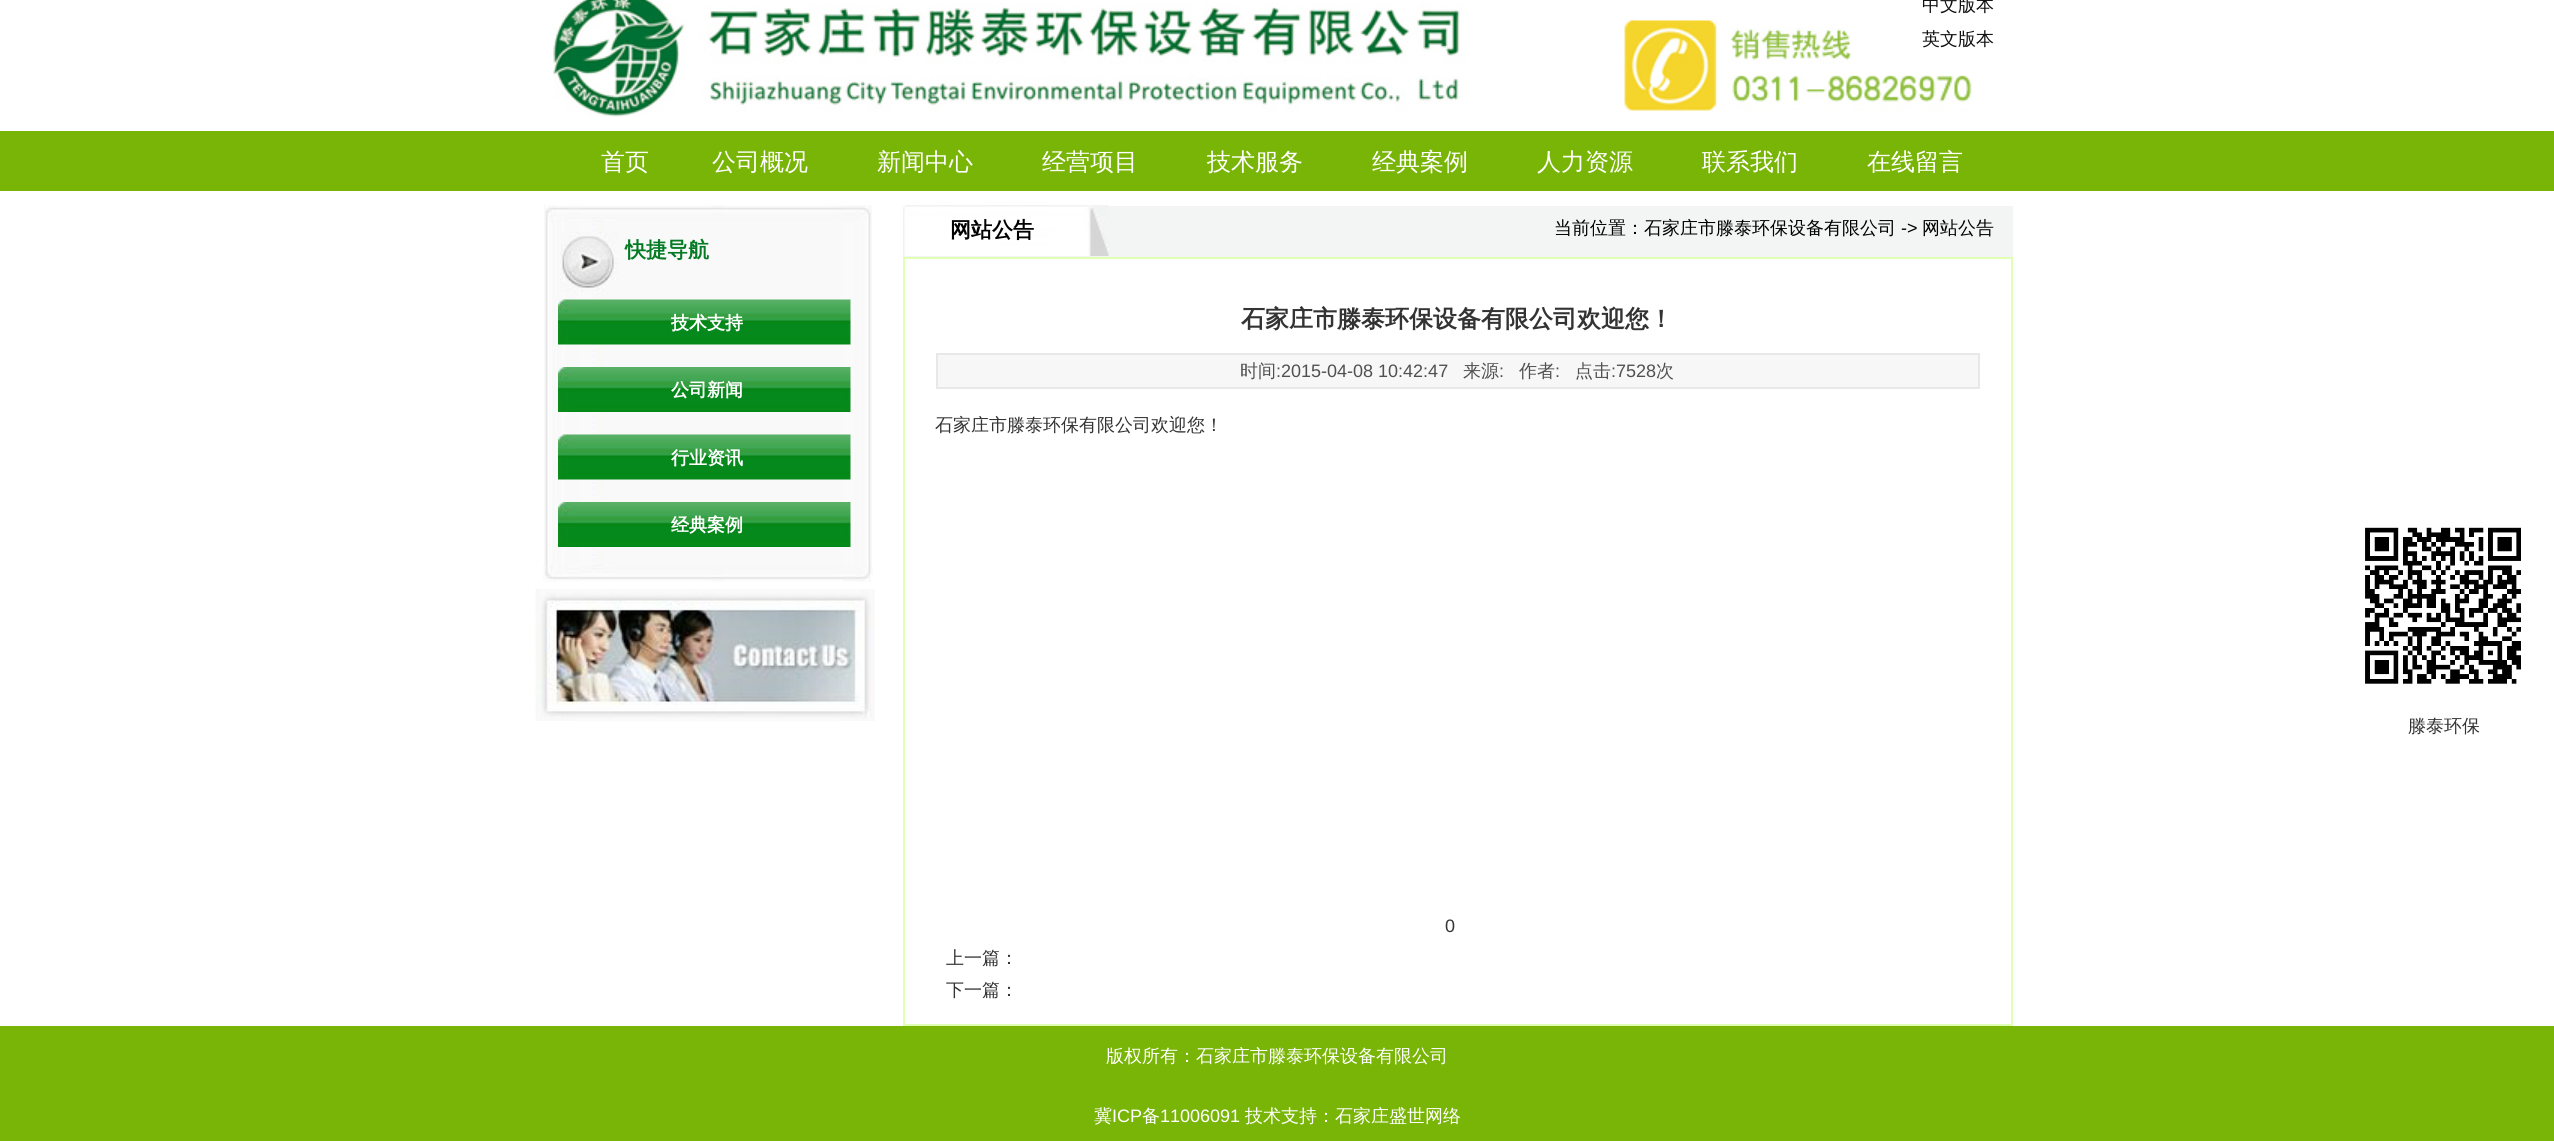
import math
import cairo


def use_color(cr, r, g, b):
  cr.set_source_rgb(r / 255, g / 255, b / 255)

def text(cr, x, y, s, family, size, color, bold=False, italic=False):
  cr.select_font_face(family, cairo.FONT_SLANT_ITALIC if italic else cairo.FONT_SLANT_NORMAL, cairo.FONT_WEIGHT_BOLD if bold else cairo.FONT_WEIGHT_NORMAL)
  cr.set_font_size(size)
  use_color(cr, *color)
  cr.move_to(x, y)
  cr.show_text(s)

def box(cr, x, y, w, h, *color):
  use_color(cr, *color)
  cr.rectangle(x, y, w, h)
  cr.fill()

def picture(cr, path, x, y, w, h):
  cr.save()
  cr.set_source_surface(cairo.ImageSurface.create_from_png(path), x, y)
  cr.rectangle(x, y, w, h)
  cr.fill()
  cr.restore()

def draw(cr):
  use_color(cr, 255, 255, 255)
  cr.paint()
  picture(cr, "img_01.png", 553, 0, 1419, 117)
  box(cr, 0, 131, 2554, 60, 121, 181, 7)
  picture(cr, "img_02.png", 544, 205, 328, 377)
  picture(cr, "img_03.png", 545, 205, 326, 17)
  box(cr, 591, 233, 12, 60, 249, 249, 249)
  picture(cr, "img_04.png", 560, 232, 58, 60)
  picture(cr, "img_05.png", 558, 299, 293, 46)
  picture(cr, "img_06.png", 558, 367, 293, 45)
  picture(cr, "img_07.png", 558, 434, 293, 46)
  picture(cr, "img_06.png", 558, 502, 293, 45)
  picture(cr, "img_08.png", 543, 565, 330, 17)
  picture(cr, "img_09.png", 535, 589, 340, 132)
  box(cr, 903, 206, 1110, 51, 243, 245, 244)
  picture(cr, "img_10.png", 903, 205, 206, 51)
  cr.rectangle(904, 258, 1108, 767)
  use_color(cr, 223, 255, 179)
  cr.stroke()
  use_color(cr, 247, 247, 247)
  cr.rectangle(937, 354, 1042, 34)
  cr.fill_preserve()
  use_color(cr, 232, 232, 232)
  cr.stroke()
  picture(cr, "img_11.png", 2365, 527, 156, 157)
  box(cr, 0, 1026, 2554, 115, 121, 181, 6)
  text(cr, 1922, 11, "中文版本", "WenQuanYi Zen Hei Medium", 18, (17, 17, 17))
  text(cr, 1922, 45, "英文版本", "WenQuanYi Zen Hei Medium", 18, (17, 17, 17))
  text(cr, 601, 170, "首页", "WenQuanYi Zen Hei Medium", 24, (255, 255, 255))
  text(cr, 712, 170, "公司概况", "WenQuanYi Zen Hei Medium", 24, (255, 255, 255))
  text(cr, 877, 170, "新闻中心", "WenQuanYi Zen Hei Medium", 24, (255, 255, 255))
  text(cr, 1042, 170, "经营项目", "WenQuanYi Zen Hei Medium", 24, (255, 255, 255))
  text(cr, 1207, 170, "技术服务", "WenQuanYi Zen Hei Medium", 24, (255, 255, 255))
  text(cr, 1372, 170, "经典案例", "WenQuanYi Zen Hei Medium", 24, (255, 255, 255))
  text(cr, 1537, 170, "人力资源", "WenQuanYi Zen Hei Medium", 24, (255, 255, 255))
  text(cr, 1702, 170, "联系我们", "WenQuanYi Zen Hei Medium", 24, (255, 255, 255))
  text(cr, 1867, 170, "在线留言", "WenQuanYi Zen Hei Medium", 24, (255, 255, 255))
  text(cr, 625, 257, "快捷导航", "WenQuanYi Zen Hei", 21, (3, 122, 35), bold=True)
  text(cr, 671, 329, "技术支持", "WenQuanYi Zen Hei", 18, (255, 255, 255), bold=True)
  text(cr, 671, 396, "公司新闻", "WenQuanYi Zen Hei", 18, (255, 255, 255), bold=True)
  text(cr, 671, 464, "行业资讯", "WenQuanYi Zen Hei", 18, (255, 255, 255), bold=True)
  text(cr, 671, 531, "经典案例", "WenQuanYi Zen Hei", 18, (255, 255, 255), bold=True)
  text(cr, 950, 237, "网站公告", "WenQuanYi Zen Hei", 21, (0, 0, 0), bold=True)
  text(cr, 1554, 234, "当前位置：石家庄市滕泰环保设备有限公司", "WenQuanYi Zen Hei Medium", 18, (0, 0, 0))
  text(cr, 1901, 234, "->", "Liberation Sans", 18, (0, 0, 0))
  text(cr, 1922, 234, "网站公告", "WenQuanYi Zen Hei Medium", 18, (0, 0, 0))
  text(cr, 1241, 327, "石家庄市滕泰环保设备有限公司欢迎您！", "WenQuanYi Zen Hei", 24, (51, 51, 51), bold=True)
  text(cr, 1240, 377, "时间", "WenQuanYi Zen Hei Medium", 18, (80, 80, 80))
  text(cr, 1276, 377, ":2015-04-08 10:42:47", "Liberation Sans", 18, (80, 80, 80))
  text(cr, 1463, 377, "来源", "WenQuanYi Zen Hei Medium", 18, (80, 80, 80))
  text(cr, 1499, 377, ":", "Liberation Sans", 18, (80, 80, 80))
  text(cr, 1519, 377, "作者", "WenQuanYi Zen Hei Medium", 18, (80, 80, 80))
  text(cr, 1555, 377, ":", "Liberation Sans", 18, (80, 80, 80))
  text(cr, 1575, 377, "点击", "WenQuanYi Zen Hei Medium", 18, (80, 80, 80))
  text(cr, 1611, 377, ":7528", "Liberation Sans", 18, (80, 80, 80))
  text(cr, 1656, 377, "次", "WenQuanYi Zen Hei Medium", 18, (80, 80, 80))
  text(cr, 935, 431, "石家庄市滕泰环保有限公司欢迎您！", "WenQuanYi Zen Hei Medium", 18, (51, 51, 51))
  text(cr, 1445, 932, "0", "Liberation Sans", 18, (51, 51, 51))
  text(cr, 946, 964, "上一篇：", "WenQuanYi Zen Hei Medium", 18, (51, 51, 51))
  text(cr, 946, 996, "下一篇：", "WenQuanYi Zen Hei Medium", 18, (51, 51, 51))
  text(cr, 2408, 732, "滕泰环保", "WenQuanYi Zen Hei Medium", 18, (51, 51, 51))
  text(cr, 1106, 1062, "版权所有：石家庄市滕泰环保设备有限公司", "WenQuanYi Zen Hei Medium", 18, (255, 255, 255))
  text(cr, 1094, 1122, "冀", "WenQuanYi Zen Hei Medium", 18, (255, 255, 255))
  text(cr, 1112, 1122, "ICP", "Liberation Sans", 18, (255, 255, 255))
  text(cr, 1142, 1122, "备", "WenQuanYi Zen Hei Medium", 18, (255, 255, 255))
  text(cr, 1160, 1122, "11006091", "Liberation Sans", 18, (255, 255, 255))
  text(cr, 1245, 1122, "技术支持：石家庄盛世网络", "WenQuanYi Zen Hei Medium", 18, (255, 255, 255))


surface = cairo.ImageSurface(cairo.FORMAT_RGB24, 2554, 1141)
cr = cairo.Context(surface)
options = cairo.FontOptions()
options.set_hint_metrics(cairo.HINT_METRICS_OFF)
options.set_hint_style(cairo.HINT_STYLE_NONE)
cr.set_font_options(options)
cr.set_miter_limit(4)
draw(cr)
surface.write_to_png("out.png")
